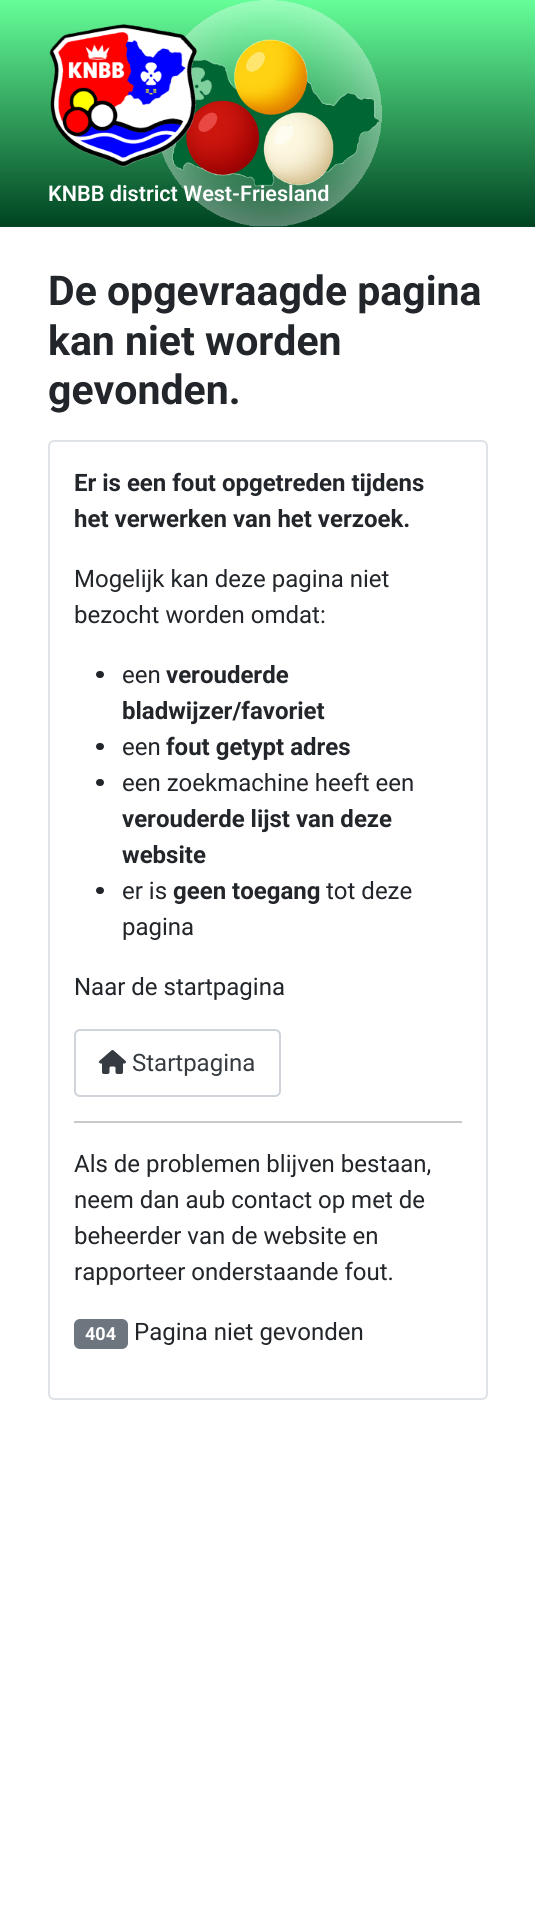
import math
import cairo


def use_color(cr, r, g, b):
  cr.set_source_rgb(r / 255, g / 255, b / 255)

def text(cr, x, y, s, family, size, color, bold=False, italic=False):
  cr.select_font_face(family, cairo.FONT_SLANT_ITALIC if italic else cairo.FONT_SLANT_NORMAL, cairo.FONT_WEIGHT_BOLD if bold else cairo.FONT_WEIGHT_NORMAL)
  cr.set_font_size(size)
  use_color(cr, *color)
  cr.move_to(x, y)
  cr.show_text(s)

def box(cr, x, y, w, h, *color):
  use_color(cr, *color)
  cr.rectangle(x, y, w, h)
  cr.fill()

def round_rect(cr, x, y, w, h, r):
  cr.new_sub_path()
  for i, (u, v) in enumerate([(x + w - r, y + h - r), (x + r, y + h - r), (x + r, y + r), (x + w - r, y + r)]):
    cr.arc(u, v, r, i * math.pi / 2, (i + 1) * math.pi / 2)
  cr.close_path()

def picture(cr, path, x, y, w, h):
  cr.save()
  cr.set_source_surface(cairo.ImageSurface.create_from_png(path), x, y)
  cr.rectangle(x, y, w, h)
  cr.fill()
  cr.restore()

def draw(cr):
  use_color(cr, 255, 255, 255)
  cr.paint()
  box(cr, 0, 226, 535, 1, 11, 75, 51)
  picture(cr, "img_01.png", 0, 0, 535, 227)
  picture(cr, "img_02.png", 155, 0, 227, 227)
  picture(cr, "img_03.png", 49, 24, 149, 143)
  round_rect(cr, 49, 441, 438, 958, 5)
  use_color(cr, 223, 227, 231)
  cr.stroke()
  use_color(cr, 34, 38, 42)
  round_rect(cr, 96, 671, 8, 7, 3.5)
  cr.fill()
  round_rect(cr, 96, 743, 8, 7, 3.5)
  cr.fill()
  round_rect(cr, 96, 779, 8, 7, 3.5)
  cr.fill()
  round_rect(cr, 96, 887, 8, 7, 3.5)
  cr.fill()
  round_rect(cr, 75, 1030, 205, 66, 5)
  use_color(cr, 206, 212, 218)
  cr.stroke()
  picture(cr, "img_04.png", 99, 1050, 27, 24)
  box(cr, 74, 1121, 388, 2, 200, 201, 202)
  use_color(cr, 109, 117, 126)
  round_rect(cr, 74, 1319, 54, 30, 6)
  cr.fill()
  text(cr, 48, 201, "KNBB district West-Friesland", "Roboto SemiBold", 21.6, (255, 255, 255))
  text(cr, 48, 305, "De opgevraagde pagina", "Roboto", 41, (34, 38, 42), bold=True)
  text(cr, 48, 355, "kan niet worden", "Roboto", 41, (34, 38, 42), bold=True)
  text(cr, 48, 404, "gevonden.", "Roboto", 41, (34, 38, 42), bold=True)
  text(cr, 74, 491, "Er is een fout opgetreden tijdens", "Roboto", 24, (34, 38, 42), bold=True)
  text(cr, 74, 527, "het verwerken van het verzoek.", "Roboto", 24, (34, 38, 42), bold=True)
  text(cr, 74, 587, "Mogelijk kan deze pagina niet", "Roboto", 24, (34, 38, 42))
  text(cr, 74, 623, "bezocht worden omdat:", "Roboto", 24, (34, 38, 42))
  text(cr, 122, 683, "een", "Roboto", 24, (34, 38, 42))
  text(cr, 166, 683, "verouderde", "Roboto", 24, (34, 38, 42), bold=True)
  text(cr, 122, 719, "bladwijzer/favoriet", "Roboto", 24, (34, 38, 42), bold=True)
  text(cr, 122, 755, "een", "Roboto", 24, (34, 38, 42))
  text(cr, 166, 755, "fout getypt adres", "Roboto", 24, (34, 38, 42), bold=True)
  text(cr, 122, 791, "een zoekmachine heeft een", "Roboto", 24, (34, 38, 42))
  text(cr, 122, 827, "verouderde lijst van deze", "Roboto", 24, (34, 38, 42), bold=True)
  text(cr, 122, 863, "website", "Roboto", 24, (34, 38, 42), bold=True)
  text(cr, 122, 899, "er is", "Roboto", 24, (34, 38, 42))
  text(cr, 173, 899, "geen toegang", "Roboto", 24, (34, 38, 42), bold=True)
  text(cr, 326, 899, "tot deze", "Roboto", 24, (34, 38, 42))
  text(cr, 122, 935, "pagina", "Roboto", 24, (34, 38, 42))
  text(cr, 74, 995, "Naar de startpagina", "Roboto", 24, (34, 38, 42))
  text(cr, 132, 1071, "Startpagina", "Roboto", 24, (53, 59, 65))
  text(cr, 74, 1172, "Als de problemen blijven bestaan,", "Roboto", 24, (34, 38, 42))
  text(cr, 74, 1208, "neem dan aub contact op met de", "Roboto", 24, (34, 38, 42))
  text(cr, 74, 1244, "beheerder van de website en", "Roboto", 24, (34, 38, 42))
  text(cr, 74, 1280, "rapporteer onderstaande fout.", "Roboto", 24, (34, 38, 42))
  text(cr, 85, 1340, "404", "Roboto", 18, (255, 255, 255), bold=True)
  text(cr, 134, 1340, "Pagina niet gevonden", "Roboto", 24, (34, 38, 42))


surface = cairo.ImageSurface(cairo.FORMAT_RGB24, 535, 1906)
cr = cairo.Context(surface)
options = cairo.FontOptions()
options.set_hint_metrics(cairo.HINT_METRICS_OFF)
options.set_hint_style(cairo.HINT_STYLE_NONE)
cr.set_font_options(options)
cr.set_miter_limit(4)
draw(cr)
surface.write_to_png("out.png")
